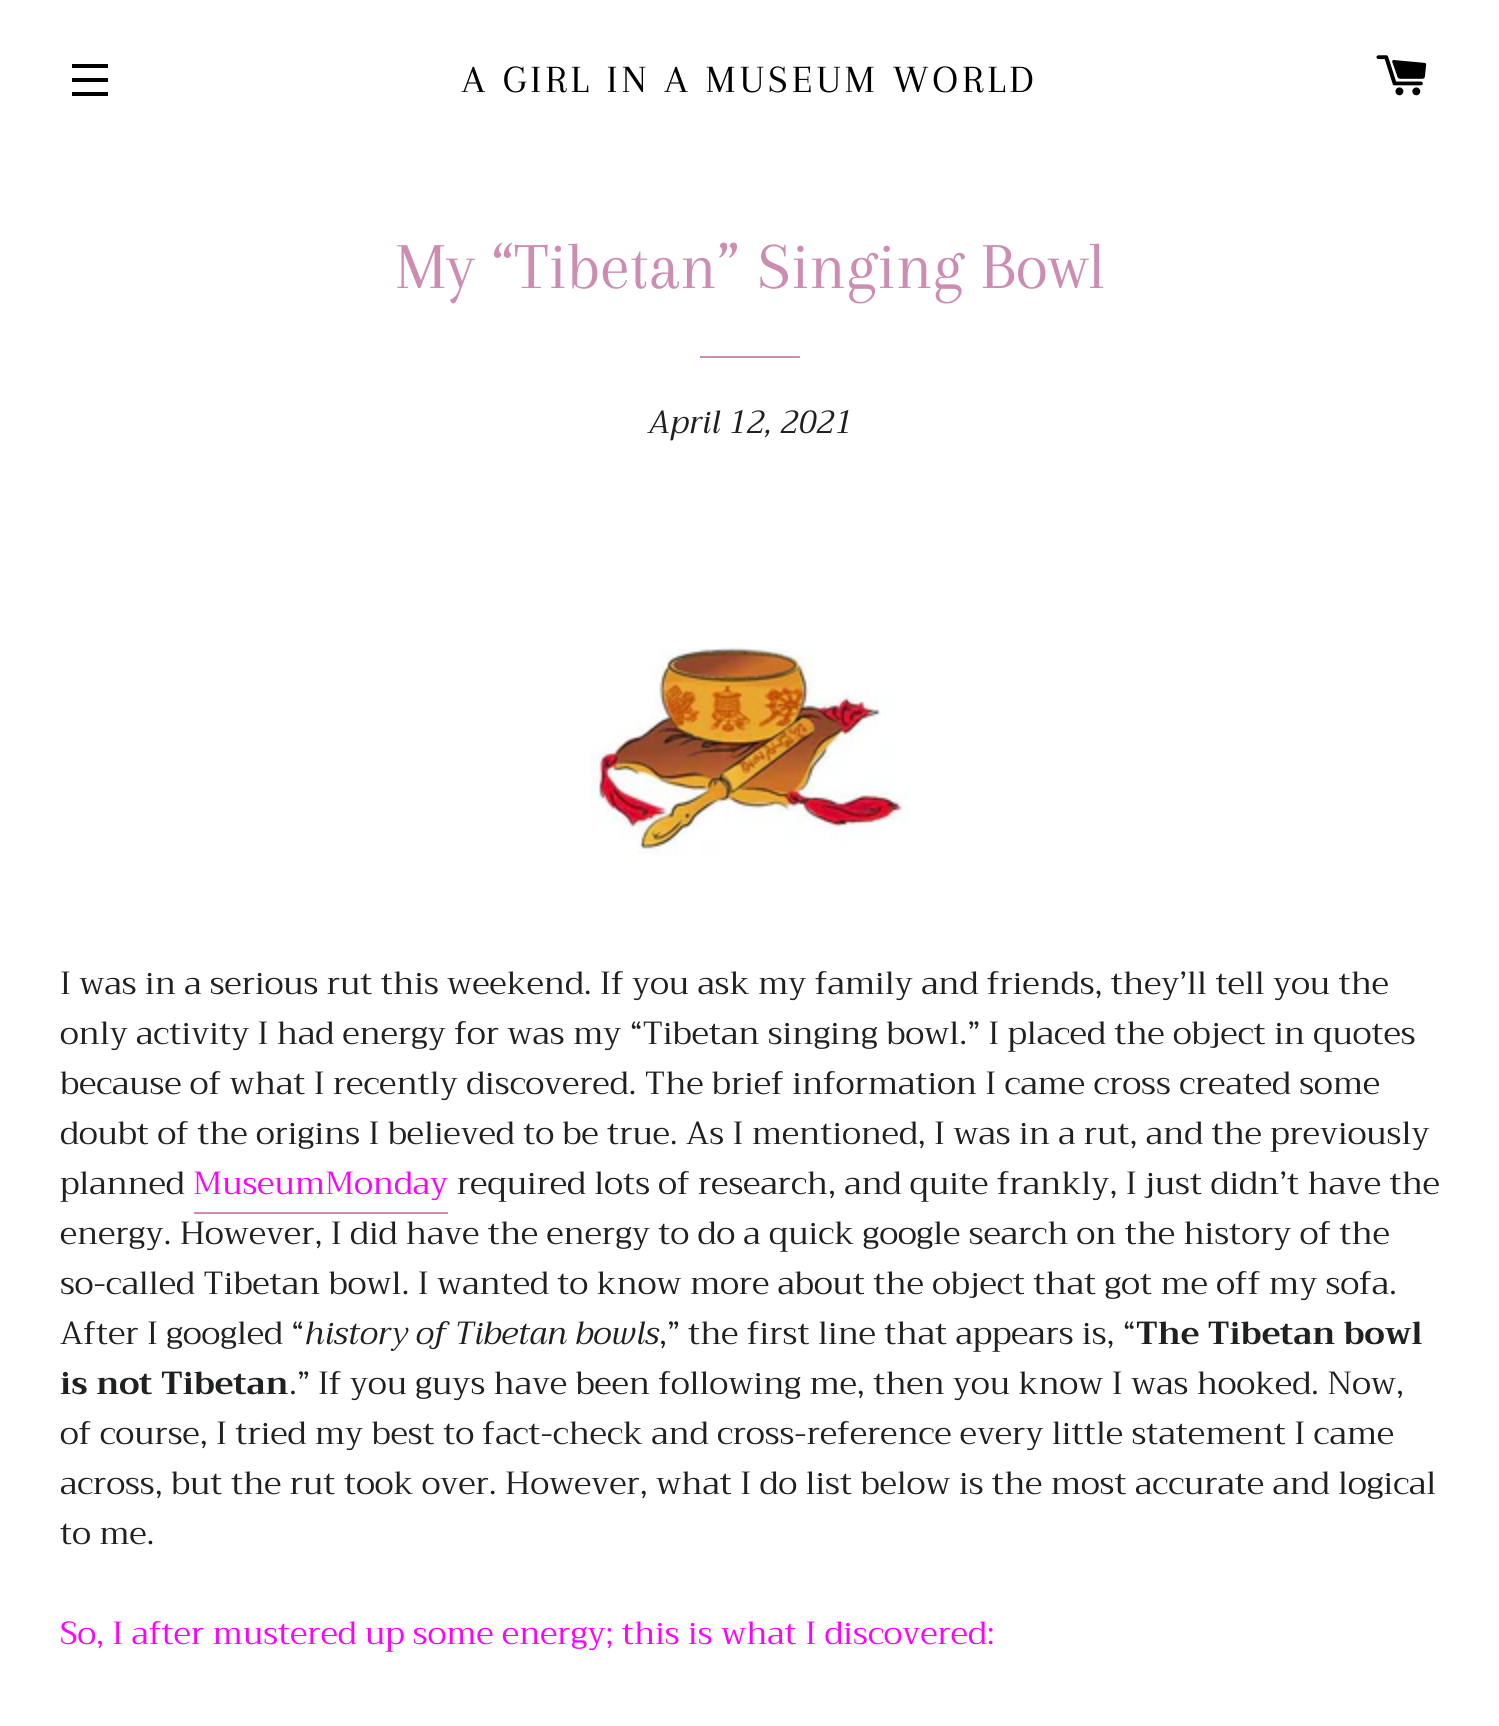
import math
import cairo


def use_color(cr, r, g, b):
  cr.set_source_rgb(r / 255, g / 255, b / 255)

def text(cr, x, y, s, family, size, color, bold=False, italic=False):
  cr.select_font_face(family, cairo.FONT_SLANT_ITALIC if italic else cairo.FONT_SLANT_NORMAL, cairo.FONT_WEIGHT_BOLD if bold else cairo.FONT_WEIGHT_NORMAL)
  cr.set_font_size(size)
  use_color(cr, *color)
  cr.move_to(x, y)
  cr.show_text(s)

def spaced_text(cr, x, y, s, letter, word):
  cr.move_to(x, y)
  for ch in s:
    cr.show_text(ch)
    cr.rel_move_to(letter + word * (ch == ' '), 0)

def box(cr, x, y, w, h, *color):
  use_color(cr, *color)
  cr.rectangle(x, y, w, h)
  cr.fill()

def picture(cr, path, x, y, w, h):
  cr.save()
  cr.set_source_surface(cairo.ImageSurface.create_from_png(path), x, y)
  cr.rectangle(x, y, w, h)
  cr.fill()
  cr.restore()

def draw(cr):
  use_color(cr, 255, 255, 255)
  cr.paint()
  box(cr, 72, 64, 36, 4, 0, 0, 0)
  box(cr, 72, 78, 36, 4, 0, 0, 0)
  box(cr, 72, 92, 36, 4, 0, 0, 0)
  picture(cr, "img_01.png", 1376, 55, 51, 41)
  box(cr, 700, 356, 100, 2, 205, 141, 179)
  picture(cr, "img_02.png", 590, 647, 320, 209)
  box(cr, 194, 1212, 254, 2, 205, 141, 179)
  cr.select_font_face("Arapey")
  cr.set_font_size(40)
  use_color(cr, 0, 0, 0)
  spaced_text(cr, 462, 92, "A GIRL IN A MUSEUM WORLD", 4, 0)
  text(cr, 395, 288, "My “Tibetan” Singing Bowl", "Arapey", 68, (205, 141, 179))
  text(cr, 648, 433, "April 12, 2021", "Trirong", 32, (31, 32, 33), italic=True)
  text(cr, 60, 994, "I was in a serious rut this weekend. If you ask my family and friends, they’ll tell you the", "Trirong", 32, (31, 32, 33))
  text(cr, 60, 1044, "only activity I had energy for was my “Tibetan singing bowl.” I placed the object in quotes", "Trirong", 32, (31, 32, 33))
  text(cr, 60, 1094, "because of what I recently discovered. The brief information I came cross created some", "Trirong", 32, (31, 32, 33))
  text(cr, 60, 1144, "doubt of the origins I believed to be true. As I mentioned, I was in a rut, and the previously", "Trirong", 32, (31, 32, 33))
  text(cr, 60, 1194, "planned", "Trirong", 32, (31, 32, 33))
  text(cr, 193, 1194, "MuseumMonday", "Trirong", 32, (255, 0, 255))
  text(cr, 457, 1194, "required lots of research, and quite frankly, I just didn’t have the", "Trirong", 32, (31, 32, 33))
  text(cr, 60, 1244, "energy. However, I did have the energy to do a quick google search on the history of the", "Trirong", 32, (31, 32, 33))
  text(cr, 60, 1294, "so-called Tibetan bowl. I wanted to know more about the object that got me off my sofa.", "Trirong", 32, (31, 32, 33))
  text(cr, 60, 1344, "After I googled “", "Trirong", 32, (31, 32, 33))
  text(cr, 304, 1344, "history of Tibetan bowls", "Trirong", 32, (31, 32, 33), italic=True)
  text(cr, 659, 1344, ",” the first line that appears is, “", "Trirong", 32, (31, 32, 33))
  text(cr, 1136, 1344, "The Tibetan bowl", "Trirong", 32, (31, 32, 33), bold=True)
  text(cr, 60, 1394, "is not Tibetan", "Trirong", 32, (31, 32, 33), bold=True)
  text(cr, 289, 1394, ".” If you guys have been following me, then you know I was hooked. Now,", "Trirong", 32, (31, 32, 33))
  text(cr, 60, 1444, "of course, I tried my best to fact-check and cross-reference every little statement I came", "Trirong", 32, (31, 32, 33))
  text(cr, 60, 1494, "across, but the rut took over. However, what I do list below is the most accurate and logical", "Trirong", 32, (31, 32, 33))
  text(cr, 60, 1544, "to me.", "Trirong", 32, (31, 32, 33))
  text(cr, 60, 1644, "So, I after mustered up some energy; this is what I discovered:", "Trirong", 32, (255, 0, 255))


surface = cairo.ImageSurface(cairo.FORMAT_RGB24, 1499, 1726)
cr = cairo.Context(surface)
options = cairo.FontOptions()
options.set_hint_metrics(cairo.HINT_METRICS_OFF)
options.set_hint_style(cairo.HINT_STYLE_NONE)
cr.set_font_options(options)
cr.set_miter_limit(4)
draw(cr)
surface.write_to_png("out.png")
